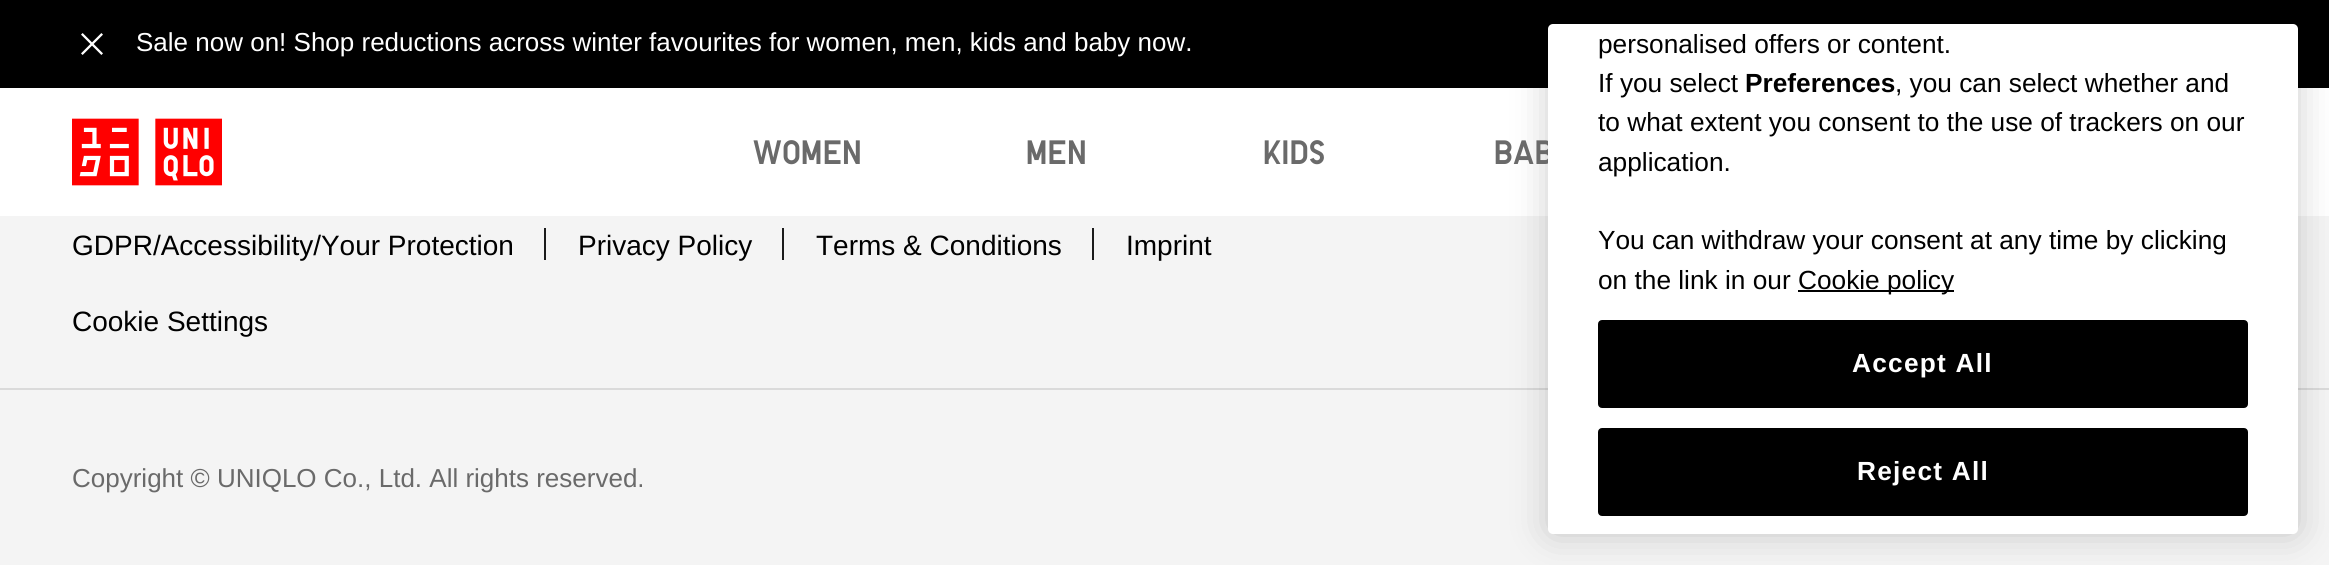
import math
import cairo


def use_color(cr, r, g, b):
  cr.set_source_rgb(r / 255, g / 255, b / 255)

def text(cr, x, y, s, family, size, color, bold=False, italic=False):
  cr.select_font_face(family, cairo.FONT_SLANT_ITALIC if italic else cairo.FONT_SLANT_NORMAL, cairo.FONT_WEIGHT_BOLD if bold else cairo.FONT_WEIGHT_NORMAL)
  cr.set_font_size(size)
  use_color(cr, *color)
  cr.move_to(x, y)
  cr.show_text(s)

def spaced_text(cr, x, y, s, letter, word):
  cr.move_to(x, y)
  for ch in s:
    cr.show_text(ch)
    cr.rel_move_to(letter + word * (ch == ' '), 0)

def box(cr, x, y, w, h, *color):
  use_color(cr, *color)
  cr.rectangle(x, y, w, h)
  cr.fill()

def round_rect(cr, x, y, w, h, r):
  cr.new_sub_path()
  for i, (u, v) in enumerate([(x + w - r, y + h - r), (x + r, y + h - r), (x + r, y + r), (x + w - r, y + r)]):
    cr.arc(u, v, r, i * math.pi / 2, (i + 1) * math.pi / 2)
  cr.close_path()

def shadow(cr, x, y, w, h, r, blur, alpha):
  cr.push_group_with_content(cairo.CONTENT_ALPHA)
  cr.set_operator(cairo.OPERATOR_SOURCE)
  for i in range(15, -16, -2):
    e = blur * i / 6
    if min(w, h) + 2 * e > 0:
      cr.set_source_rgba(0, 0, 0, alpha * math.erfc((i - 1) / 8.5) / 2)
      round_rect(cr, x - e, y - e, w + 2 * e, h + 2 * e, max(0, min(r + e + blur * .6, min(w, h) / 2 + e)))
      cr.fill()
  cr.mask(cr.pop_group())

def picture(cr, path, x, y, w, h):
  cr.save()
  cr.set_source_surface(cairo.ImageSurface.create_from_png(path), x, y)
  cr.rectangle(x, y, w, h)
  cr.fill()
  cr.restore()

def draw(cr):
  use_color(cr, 244, 244, 244)
  cr.paint()
  box(cr, 0, 0, 2329, 88, 0, 0, 0)
  picture(cr, "img_01.png", 81, 33, 22, 22)
  box(cr, 0, 88, 2329, 128, 255, 255, 255)
  picture(cr, "img_02.png", 72, 118, 150, 68)
  box(cr, 544, 228, 2, 32, 27, 27, 27)
  box(cr, 782, 228, 2, 32, 27, 27, 27)
  box(cr, 1092, 228, 2, 32, 27, 27, 27)
  box(cr, 0, 388, 2329, 2, 218, 218, 218)
  use_color(cr, 0, 0, 0)
  shadow(cr, 1548, 24, 750, 510, 5, 18, 0.2)
  text(cr, 136, 51, "Sale now on! Shop reductions across winter favourites for women, men, kids and baby now.", "Liberation Sans", 26, (255, 255, 255))
  cr.select_font_face("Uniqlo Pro")
  cr.set_font_size(34)
  use_color(cr, 106, 106, 106)
  spaced_text(cr, 753, 164, "WOMEN", 0.75, 0)
  spaced_text(cr, 1026, 164, "MEN", 0.75, 0)
  spaced_text(cr, 1263, 164, "KIDS", 0.75, 0)
  spaced_text(cr, 1494, 164, "BAB", 0.75, 0)
  text(cr, 72, 255, "GDPR/Accessibility/Your Protection", "Liberation Sans", 28, (0, 0, 0))
  text(cr, 578, 255, "Privacy Policy", "Liberation Sans", 28, (0, 0, 0))
  text(cr, 816, 255, "Terms & Conditions", "Liberation Sans", 28, (0, 0, 0))
  text(cr, 1126, 255, "Imprint", "Liberation Sans", 28, (0, 0, 0))
  text(cr, 72, 331, "Cookie Settings", "Liberation Sans", 28, (0, 0, 0))
  text(cr, 72, 487, "Copyright © UNIQLO Co., Ltd. All rights reserved.", "Liberation Sans", 26, (106, 106, 106))
  use_color(cr, 255, 255, 255)
  round_rect(cr, 1548, 24, 750, 510, 5)
  cr.fill()
  text(cr, 1598, 53, "personalised offers or content.", "Liberation Sans", 26.25, (0, 0, 0))
  text(cr, 1598, 92, "If you select", "Liberation Sans", 26.25, (0, 0, 0))
  text(cr, 1745, 92, "Preferences", "Liberation Sans", 26.25, (0, 0, 0), bold=True)
  text(cr, 1895, 92, ", you can select whether and", "Liberation Sans", 26.25, (0, 0, 0))
  text(cr, 1598, 131, "to what extent you consent to the use of trackers on our", "Liberation Sans", 26.25, (0, 0, 0))
  text(cr, 1598, 171, "application.", "Liberation Sans", 26.25, (0, 0, 0))
  text(cr, 1598, 249, "You can withdraw your consent at any time by clicking", "Liberation Sans", 26.25, (0, 0, 0))
  text(cr, 1598, 289, "on the link in our", "Liberation Sans", 26.25, (0, 0, 0))
  box(cr, 1798, 290, 156, 2, 0, 0, 0)
  text(cr, 1798, 289, "Cookie policy", "Liberation Sans", 26.25, (0, 0, 0))
  round_rect(cr, 1599, 321, 648, 86, 3)
  cr.fill_preserve()
  cr.stroke()
  cr.select_font_face("Liberation Sans", cairo.FONT_SLANT_NORMAL, cairo.FONT_WEIGHT_BOLD)
  use_color(cr, 255, 255, 255)
  spaced_text(cr, 1852, 372, "Accept All", 1.25, 0)
  use_color(cr, 0, 0, 0)
  round_rect(cr, 1599, 429, 648, 86, 3)
  cr.fill_preserve()
  cr.stroke()
  use_color(cr, 255, 255, 255)
  spaced_text(cr, 1857, 480, "Reject All", 1.25, 0)


surface = cairo.ImageSurface(cairo.FORMAT_RGB24, 2329, 565)
cr = cairo.Context(surface)
options = cairo.FontOptions()
options.set_hint_metrics(cairo.HINT_METRICS_OFF)
options.set_hint_style(cairo.HINT_STYLE_NONE)
cr.set_font_options(options)
cr.set_miter_limit(4)
draw(cr)
surface.write_to_png("out.png")
